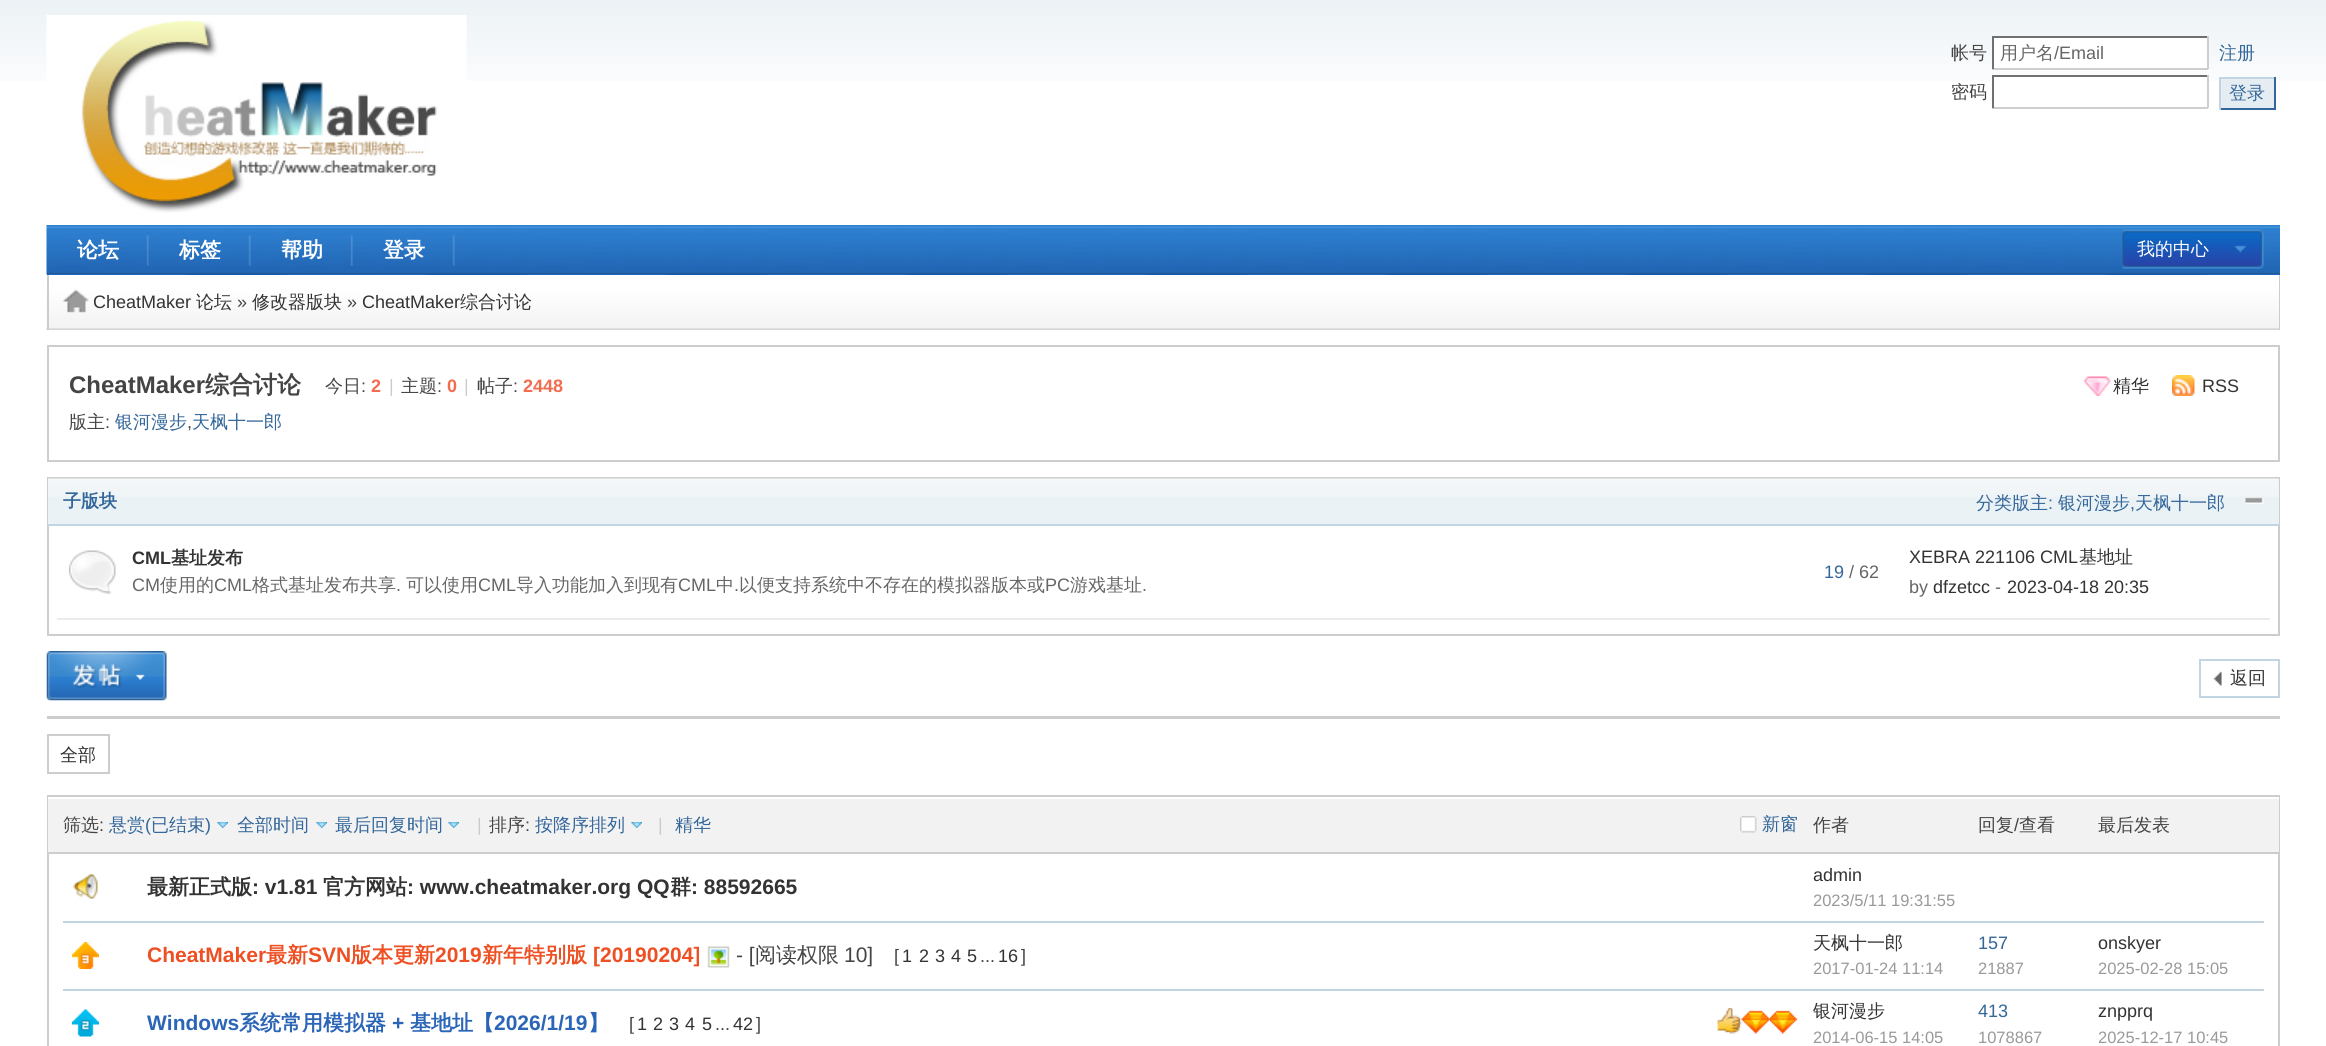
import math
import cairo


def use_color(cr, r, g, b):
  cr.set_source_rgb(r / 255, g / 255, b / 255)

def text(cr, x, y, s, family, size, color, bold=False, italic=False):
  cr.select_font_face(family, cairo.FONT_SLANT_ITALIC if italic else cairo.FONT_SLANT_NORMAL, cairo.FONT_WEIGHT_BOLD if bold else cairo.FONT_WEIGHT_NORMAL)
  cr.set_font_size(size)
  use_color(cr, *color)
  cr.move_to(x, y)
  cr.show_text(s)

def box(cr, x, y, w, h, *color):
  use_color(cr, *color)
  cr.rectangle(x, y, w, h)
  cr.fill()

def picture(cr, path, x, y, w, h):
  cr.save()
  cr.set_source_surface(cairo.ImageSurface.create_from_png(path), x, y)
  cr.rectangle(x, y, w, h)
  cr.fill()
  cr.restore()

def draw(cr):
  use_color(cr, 255, 255, 255)
  cr.paint()
  picture(cr, "img_01.png", 0, 0, 2326, 81)
  picture(cr, "img_02.png", 46, 15, 421, 198)
  box(cr, 1994, 38, 213, 30, 255, 255, 255)
  box(cr, 1992, 36, 216, 2, 112, 112, 112)
  box(cr, 2207, 36, 2, 33, 206, 206, 206)
  box(cr, 1992, 68, 216, 2, 206, 206, 206)
  box(cr, 1992, 36, 2, 33, 112, 112, 112)
  box(cr, 1994, 77, 213, 4, 255, 255, 255)
  box(cr, 1992, 75, 216, 2, 112, 112, 112)
  box(cr, 2207, 75, 2, 33, 206, 206, 206)
  box(cr, 1992, 107, 216, 2, 206, 206, 206)
  box(cr, 1992, 75, 2, 33, 112, 112, 112)
  box(cr, 2221, 79, 53, 29, 229, 237, 242)
  box(cr, 2219, 77, 57, 2, 194, 213, 227)
  box(cr, 2274, 77, 2, 33, 51, 102, 153)
  box(cr, 2219, 108, 57, 2, 51, 102, 153)
  box(cr, 2219, 77, 2, 33, 194, 213, 227)
  box(cr, 47, 274, 2233, 1, 0, 93, 195)
  picture(cr, "img_03.png", 46, 225, 2234, 50)
  picture(cr, "img_04.png", 146, 235, 3, 31)
  picture(cr, "img_05.png", 248, 235, 3, 31)
  picture(cr, "img_06.png", 350, 235, 3, 31)
  picture(cr, "img_07.png", 452, 235, 3, 31)
  picture(cr, "img_08.png", 2122, 229, 142, 40)
  picture(cr, "img_09.png", 46, 274, 2234, 56)
  picture(cr, "img_10.png", 62, 289, 27, 24)
  box(cr, 2279, 275, 1, 55, 204, 204, 204)
  box(cr, 47, 275, 2, 55, 204, 204, 204)
  cr.rectangle(48, 346, 2231, 115)
  use_color(cr, 205, 205, 205)
  cr.stroke()
  picture(cr, "img_11.png", 2083, 376, 28, 20)
  picture(cr, "img_12.png", 2172, 375, 23, 21)
  cr.rectangle(48, 478, 2231, 157)
  cr.stroke()
  box(cr, 48, 479, 2231, 45, 235, 242, 246)
  picture(cr, "img_13.png", 48, 478, 2231, 19)
  box(cr, 48, 524, 2231, 2, 194, 213, 227)
  picture(cr, "img_14.png", 2245, 497, 19, 7)
  picture(cr, "img_15.png", 69, 550, 47, 44)
  box(cr, 57, 618, 2213, 2, 235, 235, 235)
  picture(cr, "img_16.png", 46, 651, 121, 50)
  picture(cr, "img_17.png", 2213, 671, 9, 15)
  cr.rectangle(2200, 660, 79, 37)
  use_color(cr, 194, 213, 227)
  cr.stroke()
  box(cr, 47, 716, 2233, 3, 204, 204, 204)
  cr.rectangle(48, 735, 61, 38)
  use_color(cr, 205, 205, 205)
  cr.stroke()
  cr.rectangle(48, 796, 2231, 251)
  cr.stroke()
  box(cr, 48, 799, 2231, 53, 242, 242, 242)
  box(cr, 48, 797, 2231, 2, 255, 255, 255)
  box(cr, 48, 852, 2231, 2, 205, 205, 205)
  picture(cr, "img_18.png", 217, 822, 11, 6)
  picture(cr, "img_18.png", 316, 822, 11, 6)
  picture(cr, "img_18.png", 448, 822, 11, 6)
  picture(cr, "img_19.png", 631, 822, 11, 6)
  picture(cr, "img_20.png", 1740, 816, 17, 17)
  picture(cr, "img_21.png", 73, 874, 25, 25)
  box(cr, 63, 921, 2201, 2, 194, 213, 227)
  picture(cr, "img_22.png", 72, 942, 27, 27)
  picture(cr, "img_23.png", 707, 946, 23, 22)
  box(cr, 63, 989, 2201, 2, 194, 213, 227)
  picture(cr, "img_24.png", 72, 1009, 27, 28)
  picture(cr, "img_26.png", 1741, 1010, 57, 24)
  picture(cr, "img_25.png", 1717, 1008, 25, 26)
  text(cr, 1951, 59, "帐号", "WenQuanYi Zen Hei Medium", 18, (68, 68, 68))
  text(cr, 2000, 59, "用户名", "WenQuanYi Zen Hei Medium", 18, (102, 102, 102))
  text(cr, 2054, 59, "/Email", "Liberation Sans", 18, (102, 102, 102))
  text(cr, 2219, 59, "注册", "WenQuanYi Zen Hei Medium", 18, (51, 102, 153))
  text(cr, 1951, 98, "密码", "WenQuanYi Zen Hei Medium", 18, (68, 68, 68))
  text(cr, 2229, 99, "登录", "WenQuanYi Zen Hei Medium", 18, (51, 102, 153))
  text(cr, 77, 257, "论坛", "WenQuanYi Zen Hei", 21, (255, 255, 255), bold=True)
  text(cr, 179, 257, "标签", "WenQuanYi Zen Hei", 21, (255, 255, 255), bold=True)
  text(cr, 281, 257, "帮助", "WenQuanYi Zen Hei", 21, (255, 255, 255), bold=True)
  text(cr, 383, 257, "登录", "WenQuanYi Zen Hei", 21, (255, 255, 255), bold=True)
  text(cr, 2137, 255, "我的中心", "WenQuanYi Zen Hei Medium", 18, (255, 255, 255))
  text(cr, 93, 308, "CheatMaker", "Liberation Sans", 18, (51, 51, 51))
  text(cr, 196, 308, "论坛", "WenQuanYi Zen Hei Medium", 18, (51, 51, 51))
  text(cr, 237, 308, "»", "Liberation Sans", 18, (68, 68, 68))
  text(cr, 252, 308, "修改器版块", "WenQuanYi Zen Hei Medium", 18, (51, 51, 51))
  text(cr, 347, 308, "»", "Liberation Sans", 18, (68, 68, 68))
  text(cr, 362, 308, "CheatMaker", "Liberation Sans", 18, (51, 51, 51))
  text(cr, 460, 308, "综合讨论", "WenQuanYi Zen Hei Medium", 18, (51, 51, 51))
  text(cr, 69, 393, "CheatMaker", "Liberation Sans", 24, (68, 68, 68), bold=True)
  text(cr, 205, 393, "综合讨论", "WenQuanYi Zen Hei", 24, (68, 68, 68), bold=True)
  text(cr, 325, 392, "今日", "WenQuanYi Zen Hei Medium", 18, (68, 68, 68))
  text(cr, 361, 392, ":", "Liberation Sans", 18, (68, 68, 68))
  text(cr, 371, 392, "2", "Liberation Sans", 18, (242, 108, 79), bold=True)
  text(cr, 389, 392, "|", "Liberation Sans", 18, (203, 203, 203))
  text(cr, 401, 392, "主题", "WenQuanYi Zen Hei Medium", 18, (68, 68, 68))
  text(cr, 437, 392, ":", "Liberation Sans", 18, (68, 68, 68))
  text(cr, 447, 392, "0", "Liberation Sans", 18, (242, 108, 79), bold=True)
  text(cr, 464, 392, "|", "Liberation Sans", 18, (203, 203, 203))
  text(cr, 477, 392, "帖子", "WenQuanYi Zen Hei Medium", 18, (68, 68, 68))
  text(cr, 513, 392, ":", "Liberation Sans", 18, (68, 68, 68))
  text(cr, 523, 392, "2448", "Liberation Sans", 18, (242, 108, 79), bold=True)
  text(cr, 2113, 392, "精华", "WenQuanYi Zen Hei Medium", 18, (51, 51, 51))
  text(cr, 2202, 392, "RSS", "Liberation Sans", 18, (51, 51, 51))
  text(cr, 69, 428, "版主", "WenQuanYi Zen Hei Medium", 18, (68, 68, 68))
  text(cr, 105, 428, ":", "Liberation Sans", 18, (68, 68, 68))
  text(cr, 115, 428, "银河漫步", "WenQuanYi Zen Hei Medium", 18, (51, 102, 153))
  text(cr, 192, 428, "天枫十一郎", "WenQuanYi Zen Hei Medium", 18, (51, 102, 153))
  text(cr, 187, 428, ",", "Liberation Sans", 18, (68, 68, 68))
  text(cr, 63, 507, "子版块", "WenQuanYi Zen Hei", 18, (51, 102, 153), bold=True)
  text(cr, 1976, 509, "分类版主", "WenQuanYi Zen Hei Medium", 18, (51, 102, 153))
  text(cr, 2048, 509, ":", "Liberation Sans", 18, (51, 102, 153))
  text(cr, 2058, 509, "银河漫步", "WenQuanYi Zen Hei Medium", 18, (51, 102, 153))
  text(cr, 2135, 509, "天枫十一郎", "WenQuanYi Zen Hei Medium", 18, (51, 102, 153))
  text(cr, 2130, 509, ",", "Liberation Sans", 18, (51, 102, 153))
  text(cr, 132, 564, "CML", "Liberation Sans", 18, (51, 51, 51), bold=True)
  text(cr, 171, 564, "基址发布", "WenQuanYi Zen Hei", 18, (51, 51, 51), bold=True)
  text(cr, 132, 591, "CM", "Liberation Sans", 18, (102, 102, 102))
  text(cr, 160, 591, "使用的", "WenQuanYi Zen Hei Medium", 18, (102, 102, 102))
  text(cr, 214, 591, "CML", "Liberation Sans", 18, (102, 102, 102))
  text(cr, 252, 591, "格式基址发布共享", "WenQuanYi Zen Hei Medium", 18, (102, 102, 102))
  text(cr, 396, 591, ".", "Liberation Sans", 18, (102, 102, 102))
  text(cr, 406, 591, "可以使用", "WenQuanYi Zen Hei Medium", 18, (102, 102, 102))
  text(cr, 478, 591, "CML", "Liberation Sans", 18, (102, 102, 102))
  text(cr, 516, 591, "导入功能加入到现有", "WenQuanYi Zen Hei Medium", 18, (102, 102, 102))
  text(cr, 678, 591, "CML", "Liberation Sans", 18, (102, 102, 102))
  text(cr, 716, 591, "中", "WenQuanYi Zen Hei Medium", 18, (102, 102, 102))
  text(cr, 734, 591, ".", "Liberation Sans", 18, (102, 102, 102))
  text(cr, 739, 591, "以便支持系统中不存在的模拟器版本或", "WenQuanYi Zen Hei Medium", 18, (102, 102, 102))
  text(cr, 1045, 591, "PC", "Liberation Sans", 18, (102, 102, 102))
  text(cr, 1070, 591, "游戏基址", "WenQuanYi Zen Hei Medium", 18, (102, 102, 102))
  text(cr, 1142, 591, ".", "Liberation Sans", 18, (102, 102, 102))
  text(cr, 1824, 578, "19", "Liberation Sans", 18, (51, 102, 153))
  text(cr, 1849, 578, "/ 62", "Liberation Sans", 18, (102, 102, 102))
  text(cr, 1909, 563, "XEBRA 221106 CML", "Liberation Sans", 18, (51, 51, 51))
  text(cr, 2079, 563, "基地址", "WenQuanYi Zen Hei Medium", 18, (51, 51, 51))
  text(cr, 1909, 593, "by", "Liberation Sans", 18, (102, 102, 102))
  text(cr, 1933, 593, "dfzetcc", "Liberation Sans", 18, (51, 51, 51))
  text(cr, 1995, 593, "-", "Liberation Sans", 18, (102, 102, 102))
  text(cr, 2007, 593, "2023-04-18 20:35", "Liberation Sans", 18, (51, 51, 51))
  text(cr, 2230, 684, "返回", "WenQuanYi Zen Hei Medium", 18, (51, 51, 51))
  text(cr, 60, 761, "全部", "WenQuanYi Zen Hei Medium", 18, (51, 51, 51))
  text(cr, 63, 831, "筛选", "WenQuanYi Zen Hei Medium", 18, (68, 68, 68))
  text(cr, 99, 831, ":", "Liberation Sans", 18, (68, 68, 68))
  text(cr, 109, 831, "悬赏", "WenQuanYi Zen Hei Medium", 18, (51, 102, 153))
  text(cr, 145, 831, "(", "Liberation Sans", 18, (51, 102, 153))
  text(cr, 151, 831, "已结束", "WenQuanYi Zen Hei Medium", 18, (51, 102, 153))
  text(cr, 205, 831, ")", "Liberation Sans", 18, (51, 102, 153))
  text(cr, 237, 831, "全部时间", "WenQuanYi Zen Hei Medium", 18, (51, 102, 153))
  text(cr, 335, 831, "最后回复时间", "WenQuanYi Zen Hei Medium", 18, (51, 102, 153))
  text(cr, 477, 831, "|", "Liberation Sans", 18, (203, 203, 203))
  text(cr, 489, 831, "排序", "WenQuanYi Zen Hei Medium", 18, (68, 68, 68))
  text(cr, 525, 831, ":", "Liberation Sans", 18, (68, 68, 68))
  text(cr, 535, 831, "按降序排列", "WenQuanYi Zen Hei Medium", 18, (51, 102, 153))
  text(cr, 658, 831, "|", "Liberation Sans", 18, (203, 203, 203))
  text(cr, 675, 831, "精华", "WenQuanYi Zen Hei Medium", 18, (51, 102, 153))
  text(cr, 1762, 830, "新窗", "WenQuanYi Zen Hei Medium", 18, (51, 102, 153))
  text(cr, 1813, 831, "作者", "WenQuanYi Zen Hei Medium", 18, (68, 68, 68))
  text(cr, 1978, 831, "回复", "WenQuanYi Zen Hei Medium", 18, (68, 68, 68))
  text(cr, 2014, 831, "/", "Liberation Sans", 18, (68, 68, 68))
  text(cr, 2019, 831, "查看", "WenQuanYi Zen Hei Medium", 18, (68, 68, 68))
  text(cr, 2098, 831, "最后发表", "WenQuanYi Zen Hei Medium", 18, (68, 68, 68))
  text(cr, 147, 894, "最新正式版", "WenQuanYi Zen Hei", 21, (51, 51, 51), bold=True)
  text(cr, 252, 894, ": v1.81", "Liberation Sans", 21, (51, 51, 51), bold=True)
  text(cr, 323, 894, "官方网站", "WenQuanYi Zen Hei", 21, (51, 51, 51), bold=True)
  text(cr, 407, 894, ": www.cheatmaker.org QQ", "Liberation Sans", 21, (51, 51, 51), bold=True)
  text(cr, 670, 894, "群", "WenQuanYi Zen Hei", 21, (51, 51, 51), bold=True)
  text(cr, 691, 894, ": 88592665", "Liberation Sans", 21, (51, 51, 51), bold=True)
  text(cr, 1813, 881, "admin", "Liberation Sans", 18, (51, 51, 51))
  text(cr, 1813, 906, "2023/5/11 19:31:55", "Liberation Sans", 16.5, (153, 153, 153))
  text(cr, 147, 962, "CheatMaker", "Liberation Sans", 21, (238, 80, 35), bold=True)
  text(cr, 266, 962, "最新", "WenQuanYi Zen Hei", 21, (238, 80, 35), bold=True)
  text(cr, 308, 962, "SVN", "Liberation Sans", 21, (238, 80, 35), bold=True)
  text(cr, 351, 962, "版本更新", "WenQuanYi Zen Hei", 21, (238, 80, 35), bold=True)
  text(cr, 435, 962, "2019", "Liberation Sans", 21, (238, 80, 35), bold=True)
  text(cr, 482, 962, "新年特别版", "WenQuanYi Zen Hei", 21, (238, 80, 35), bold=True)
  text(cr, 593, 962, "[20190204]", "Liberation Sans", 21, (238, 80, 35), bold=True)
  text(cr, 736, 962, "- [", "Liberation Sans", 21, (68, 68, 68))
  text(cr, 755, 962, "阅读权限", "WenQuanYi Zen Hei Medium", 21, (68, 68, 68))
  text(cr, 844, 962, "10]", "Liberation Sans", 21, (68, 68, 68))
  text(cr, 894, 962, "[", "Liberation Sans", 18, (68, 68, 68))
  text(cr, 902, 962, "1", "Liberation Sans", 18, (51, 51, 51))
  text(cr, 919, 962, "2", "Liberation Sans", 18, (51, 51, 51))
  text(cr, 935, 962, "3", "Liberation Sans", 18, (51, 51, 51))
  text(cr, 951, 962, "4", "Liberation Sans", 18, (51, 51, 51))
  text(cr, 967, 962, "5", "Liberation Sans", 18, (51, 51, 51))
  text(cr, 980, 962, "...", "Liberation Sans", 18, (68, 68, 68))
  text(cr, 998, 962, "16", "Liberation Sans", 18, (51, 51, 51))
  text(cr, 1021, 962, "]", "Liberation Sans", 18, (68, 68, 68))
  text(cr, 1813, 949, "天枫十一郎", "WenQuanYi Zen Hei Medium", 18, (51, 51, 51))
  text(cr, 1813, 974, "2017-01-24 11:14", "Liberation Sans", 16.5, (153, 153, 153))
  text(cr, 1978, 949, "157", "Liberation Sans", 18, (51, 102, 153))
  text(cr, 1978, 974, "21887", "Liberation Sans", 16.5, (153, 153, 153))
  text(cr, 2098, 949, "onskyer", "Liberation Sans", 18, (51, 51, 51))
  text(cr, 2098, 974, "2025-02-28 15:05", "Liberation Sans", 16.5, (153, 153, 153))
  text(cr, 147, 1030, "Windows", "Liberation Sans", 21, (43, 101, 183), bold=True)
  text(cr, 239, 1030, "系统常用模拟器", "WenQuanYi Zen Hei", 21, (43, 101, 183), bold=True)
  text(cr, 392, 1030, "+", "Liberation Sans", 21, (43, 101, 183), bold=True)
  text(cr, 410, 1030, "基地址【", "WenQuanYi Zen Hei", 21, (43, 101, 183), bold=True)
  text(cr, 494, 1030, "2026/1/19", "Liberation Sans", 21, (43, 101, 183), bold=True)
  text(cr, 588, 1030, "】", "WenQuanYi Zen Hei", 21, (43, 101, 183), bold=True)
  text(cr, 629, 1030, "[", "Liberation Sans", 18, (68, 68, 68))
  text(cr, 637, 1030, "1", "Liberation Sans", 18, (51, 51, 51))
  text(cr, 653, 1030, "2", "Liberation Sans", 18, (51, 51, 51))
  text(cr, 669, 1030, "3", "Liberation Sans", 18, (51, 51, 51))
  text(cr, 685, 1030, "4", "Liberation Sans", 18, (51, 51, 51))
  text(cr, 702, 1030, "5", "Liberation Sans", 18, (51, 51, 51))
  text(cr, 715, 1030, "...", "Liberation Sans", 18, (68, 68, 68))
  text(cr, 733, 1030, "42", "Liberation Sans", 18, (51, 51, 51))
  text(cr, 756, 1030, "]", "Liberation Sans", 18, (68, 68, 68))
  text(cr, 1813, 1017, "银河漫步", "WenQuanYi Zen Hei Medium", 18, (51, 51, 51))
  text(cr, 1813, 1043, "2014-06-15 14:05", "Liberation Sans", 16.5, (153, 153, 153))
  text(cr, 1978, 1017, "413", "Liberation Sans", 18, (51, 102, 153))
  text(cr, 1978, 1043, "1078867", "Liberation Sans", 16.5, (153, 153, 153))
  text(cr, 2098, 1017, "znpprq", "Liberation Sans", 18, (51, 51, 51))
  text(cr, 2098, 1043, "2025-12-17 10:45", "Liberation Sans", 16.5, (153, 153, 153))


surface = cairo.ImageSurface(cairo.FORMAT_RGB24, 2326, 1046)
cr = cairo.Context(surface)
options = cairo.FontOptions()
options.set_hint_metrics(cairo.HINT_METRICS_OFF)
options.set_hint_style(cairo.HINT_STYLE_NONE)
cr.set_font_options(options)
cr.set_miter_limit(4)
draw(cr)
surface.write_to_png("out.png")
